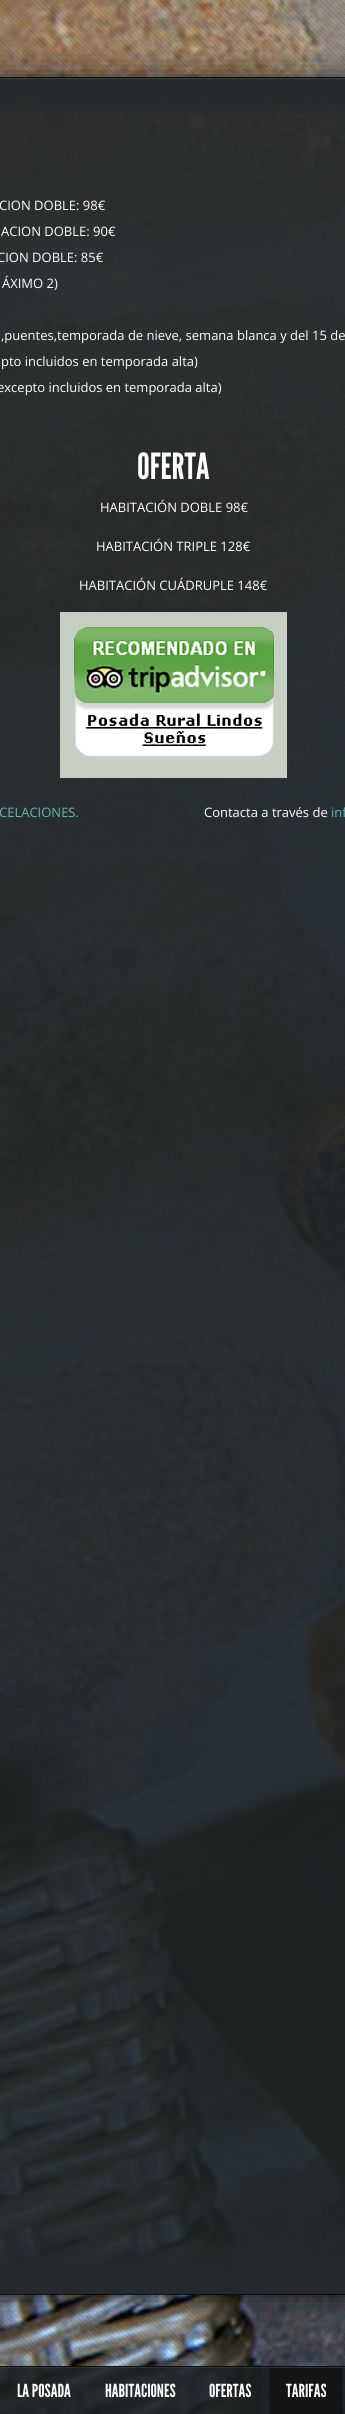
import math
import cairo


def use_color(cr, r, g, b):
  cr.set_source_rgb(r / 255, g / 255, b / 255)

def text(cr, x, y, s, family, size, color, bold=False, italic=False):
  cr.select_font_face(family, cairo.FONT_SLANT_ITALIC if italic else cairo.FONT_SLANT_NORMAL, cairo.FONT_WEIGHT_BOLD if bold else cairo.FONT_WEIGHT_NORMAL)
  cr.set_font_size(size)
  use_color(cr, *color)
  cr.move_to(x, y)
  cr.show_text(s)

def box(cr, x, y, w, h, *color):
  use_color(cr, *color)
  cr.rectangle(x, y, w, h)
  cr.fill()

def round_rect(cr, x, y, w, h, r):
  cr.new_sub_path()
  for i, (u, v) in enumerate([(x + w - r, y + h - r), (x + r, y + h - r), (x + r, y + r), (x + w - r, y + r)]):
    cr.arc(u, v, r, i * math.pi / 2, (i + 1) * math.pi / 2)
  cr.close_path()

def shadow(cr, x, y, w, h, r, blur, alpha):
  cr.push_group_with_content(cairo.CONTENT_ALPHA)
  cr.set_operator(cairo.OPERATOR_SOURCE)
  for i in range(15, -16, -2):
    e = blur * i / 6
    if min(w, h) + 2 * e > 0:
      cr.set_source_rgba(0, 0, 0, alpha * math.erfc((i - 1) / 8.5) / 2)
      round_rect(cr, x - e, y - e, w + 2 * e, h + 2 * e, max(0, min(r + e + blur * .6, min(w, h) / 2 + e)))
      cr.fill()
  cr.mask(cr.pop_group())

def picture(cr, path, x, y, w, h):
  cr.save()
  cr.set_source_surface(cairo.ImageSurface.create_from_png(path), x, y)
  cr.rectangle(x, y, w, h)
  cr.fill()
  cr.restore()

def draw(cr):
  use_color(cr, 255, 255, 255)
  cr.paint()
  picture(cr, "img_01.png", 0, 0, 345, 2414)
  picture(cr, "img_02.png", 0, 0, 345, 2414)
  cr.save()
  cr.set_fill_rule(cairo.FILL_RULE_EVEN_ODD)
  cr.new_path()
  cr.move_to(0, 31)
  cr.line_to(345, 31)
  cr.line_to(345, 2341)
  cr.line_to(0, 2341)
  cr.close_path()
  cr.move_to(-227, 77)
  cr.line_to(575, 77)
  cr.line_to(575, 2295)
  cr.line_to(-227, 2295)
  cr.close_path()
  cr.clip()
  use_color(cr, 0, 0, 0)
  shadow(cr, -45, 77, 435, 2218, 0, 15, 0.7)
  cr.restore()
  cr.save()
  cr.rectangle(0, 78, 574, 2216)
  cr.clip()
  cr.set_source_rgba(0.62, 0.804, 0.843, 0.1)
  cr.set_fill_rule(cairo.FILL_RULE_EVEN_ODD)
  cr.new_path()
  cr.move_to(-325, -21)
  cr.line_to(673, -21)
  cr.line_to(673, 2393)
  cr.line_to(-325, 2393)
  cr.close_path()
  cr.move_to(-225, 79)
  cr.line_to(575, 79)
  cr.line_to(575, 2295)
  cr.line_to(-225, 2295)
  cr.close_path()
  cr.fill()
  cr.restore()
  cr.rectangle(-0.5, 77.5, 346, 2217)
  use_color(cr, 11, 13, 14)
  cr.set_line_width(1)
  cr.stroke()
  picture(cr, "img_03.png", 0, 80, 345, 33)
  picture(cr, "img_04.png", 60, 612, 227, 166)
  picture(cr, "img_05.png", 0, 2245, 345, 49)
  cr.set_source_rgba(0.106, 0.125, 0.133, 0.9)
  cr.rectangle(0, 2367, 345, 47)
  cr.fill()
  cr.set_source_rgba(0.62, 0.804, 0.843, 0.1)
  cr.rectangle(0, 2367, 345, 1)
  cr.fill()
  box(cr, 0, 2366, 345, 1, 11, 13, 14)
  box(cr, 269, 2368, 74, 46, 20, 21, 22)
  text(cr, -1, 210, "CION DOBLE: 98€", "Open Sans", 13, (255, 255, 255))
  text(cr, 1, 236, "ACION DOBLE: 90€", "Open Sans", 13, (255, 255, 255))
  text(cr, -3, 262, "CION DOBLE: 85€", "Open Sans", 13, (255, 255, 255))
  text(cr, 2, 288, "ÁXIMO 2)", "Open Sans", 13, (255, 255, 255))
  text(cr, 1, 340, ",puentes,temporada de nieve, semana blanca y del 15 de", "Open Sans", 13, (255, 255, 255))
  text(cr, 1, 366, "pto incluidos en temporada alta)", "Open Sans", 13, (255, 255, 255))
  text(cr, -3, 392, "excepto incluidos en temporada alta)", "Open Sans", 13, (255, 255, 255))
  text(cr, 137, 479, "OFERTA", "League Gothic", 36, (255, 255, 255))
  text(cr, 100, 512, "HABITACIÓN DOBLE 98€", "Open Sans", 13, (255, 255, 255))
  text(cr, 96, 551, "HABITACIÓN TRIPLE 128€", "Open Sans", 13, (255, 255, 255))
  text(cr, 79, 590, "HABITACIÓN CUÁDRUPLE 148€", "Open Sans", 13, (255, 255, 255))
  text(cr, -1, 817, "CELACIONES.", "Open Sans", 13, (101, 186, 179))
  text(cr, 204, 817, "Contacta a través de", "Open Sans", 13, (255, 255, 255))
  text(cr, 331, 817, "inf", "Open Sans", 13, (101, 186, 179))
  text(cr, 17, 2397, "LA POSADA", "League Gothic", 18, (255, 255, 255))
  text(cr, 105, 2397, "HABITACIONES", "League Gothic", 18, (255, 255, 255))
  text(cr, 209, 2397, "OFERTAS", "League Gothic", 18, (255, 255, 255))
  text(cr, 286, 2397, "TARIFAS", "League Gothic", 18, (255, 255, 255))


surface = cairo.ImageSurface(cairo.FORMAT_RGB24, 345, 2414)
cr = cairo.Context(surface)
options = cairo.FontOptions()
options.set_hint_metrics(cairo.HINT_METRICS_OFF)
options.set_hint_style(cairo.HINT_STYLE_NONE)
cr.set_font_options(options)
cr.set_miter_limit(4)
draw(cr)
surface.write_to_png("out.png")
